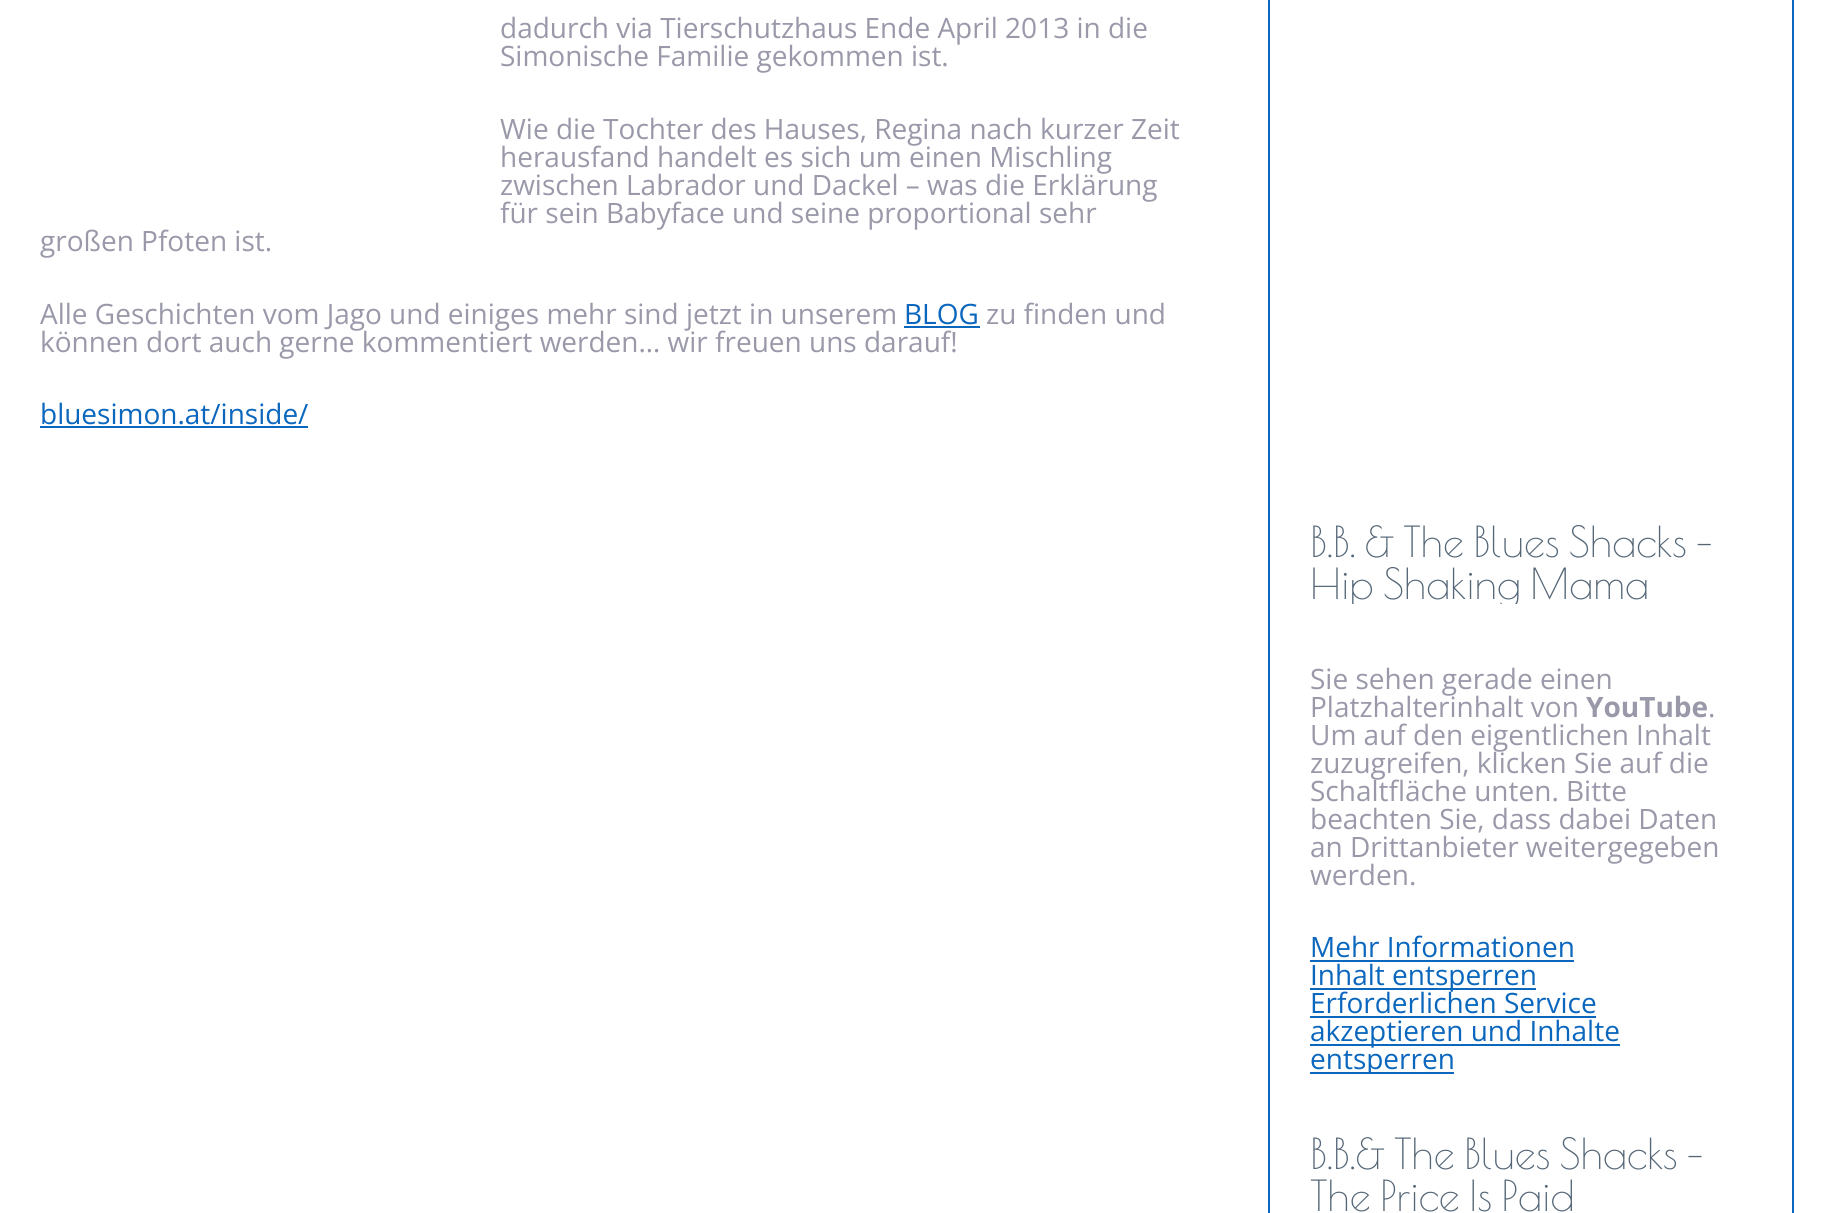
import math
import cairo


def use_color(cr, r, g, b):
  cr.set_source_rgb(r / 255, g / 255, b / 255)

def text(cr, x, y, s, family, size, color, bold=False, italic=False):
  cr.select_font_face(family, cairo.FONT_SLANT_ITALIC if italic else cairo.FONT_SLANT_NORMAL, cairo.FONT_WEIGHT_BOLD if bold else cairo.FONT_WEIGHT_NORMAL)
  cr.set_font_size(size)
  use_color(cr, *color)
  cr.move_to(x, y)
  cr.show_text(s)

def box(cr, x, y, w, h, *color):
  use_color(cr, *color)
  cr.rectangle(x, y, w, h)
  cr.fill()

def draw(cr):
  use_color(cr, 255, 255, 255)
  cr.paint()
  box(cr, 904, 326, 76, 2, 11, 103, 189)
  box(cr, 40, 426, 268, 2, 11, 103, 189)
  cr.rectangle(1269, -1, 524, 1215)
  cr.stroke()
  box(cr, 1310, 960, 264, 2, 11, 103, 189)
  box(cr, 1310, 988, 226, 2, 11, 103, 189)
  box(cr, 1310, 1016, 286, 2, 11, 103, 189)
  box(cr, 1310, 1044, 310, 2, 11, 103, 189)
  box(cr, 1310, 1072, 144, 2, 11, 103, 189)
  text(cr, 500, 38, "dadurch via Tierschutzhaus Ende April 2013 in die", "Open Sans", 28, (153, 153, 170))
  text(cr, 500, 66, "Simonische Familie gekommen ist.", "Open Sans", 28, (153, 153, 170))
  text(cr, 500, 139, "Wie die Tochter des Hauses, Regina nach kurzer Zeit", "Open Sans", 28, (153, 153, 170))
  text(cr, 500, 167, "herausfand handelt es sich um einen Mischling", "Open Sans", 28, (153, 153, 170))
  text(cr, 500, 195, "zwischen Labrador und Dackel – was die Erklärung", "Open Sans", 28, (153, 153, 170))
  text(cr, 500, 223, "für sein Babyface und seine proportional sehr", "Open Sans", 28, (153, 153, 170))
  text(cr, 40, 251, "großen Pfoten ist.", "Open Sans", 28, (153, 153, 170))
  text(cr, 40, 324, "Alle Geschichten vom Jago und einiges mehr sind jetzt in unserem", "Open Sans", 28, (153, 153, 170))
  text(cr, 904, 324, "BLOG", "Open Sans", 28, (11, 103, 189))
  text(cr, 986, 324, "zu finden und", "Open Sans", 28, (153, 153, 170))
  text(cr, 40, 352, "können dort auch gerne kommentiert werden… wir freuen uns darauf!", "Open Sans", 28, (153, 153, 170))
  text(cr, 40, 424, "bluesimon.at/inside/", "Open Sans", 28, (11, 103, 189))
  text(cr, 1310, 557, "B.B. & The Blues Shacks -", "Poiret One", 42, (85, 102, 119))
  cr.save()
  cr.rectangle(1310, 520, 442, 84)
  cr.clip()
  text(cr, 1310, 599, "Hip Shaking Mama", "Poiret One", 42, (85, 102, 119))
  cr.restore()
  text(cr, 1310, 689, "Sie sehen gerade einen", "Open Sans", 28, (153, 153, 170))
  text(cr, 1310, 717, "Platzhalterinhalt von", "Open Sans", 28, (153, 153, 170))
  text(cr, 1586, 717, "YouTube", "Open Sans", 28, (153, 153, 170), bold=True)
  text(cr, 1708, 717, ".", "Open Sans", 28, (153, 153, 170))
  text(cr, 1310, 745, "Um auf den eigentlichen Inhalt", "Open Sans", 28, (153, 153, 170))
  text(cr, 1310, 773, "zuzugreifen, klicken Sie auf die", "Open Sans", 28, (153, 153, 170))
  text(cr, 1310, 801, "Schaltfläche unten. Bitte", "Open Sans", 28, (153, 153, 170))
  text(cr, 1310, 829, "beachten Sie, dass dabei Daten", "Open Sans", 28, (153, 153, 170))
  text(cr, 1310, 857, "an Drittanbieter weitergegeben", "Open Sans", 28, (153, 153, 170))
  text(cr, 1310, 885, "werden.", "Open Sans", 28, (153, 153, 170))
  text(cr, 1310, 957, "Mehr Informationen", "Open Sans", 28, (11, 103, 189))
  text(cr, 1310, 985, "Inhalt entsperren", "Open Sans", 28, (11, 103, 189))
  text(cr, 1310, 1013, "Erforderlichen Service", "Open Sans", 28, (11, 103, 189))
  text(cr, 1310, 1041, "akzeptieren und Inhalte", "Open Sans", 28, (11, 103, 189))
  cr.save()
  cr.rectangle(1310, 664, 442, 410)
  cr.clip()
  text(cr, 1310, 1069, "entsperren", "Open Sans", 28, (11, 103, 189))
  cr.restore()
  text(cr, 1310, 1169, "B.B.& The Blues Shacks -", "Poiret One", 42, (85, 102, 119))
  text(cr, 1310, 1211, "The Price Is Paid", "Poiret One", 42, (85, 102, 119))


surface = cairo.ImageSurface(cairo.FORMAT_RGB24, 1833, 1213)
cr = cairo.Context(surface)
options = cairo.FontOptions()
options.set_hint_metrics(cairo.HINT_METRICS_OFF)
options.set_hint_style(cairo.HINT_STYLE_NONE)
cr.set_font_options(options)
cr.set_miter_limit(4)
draw(cr)
surface.write_to_png("out.png")
